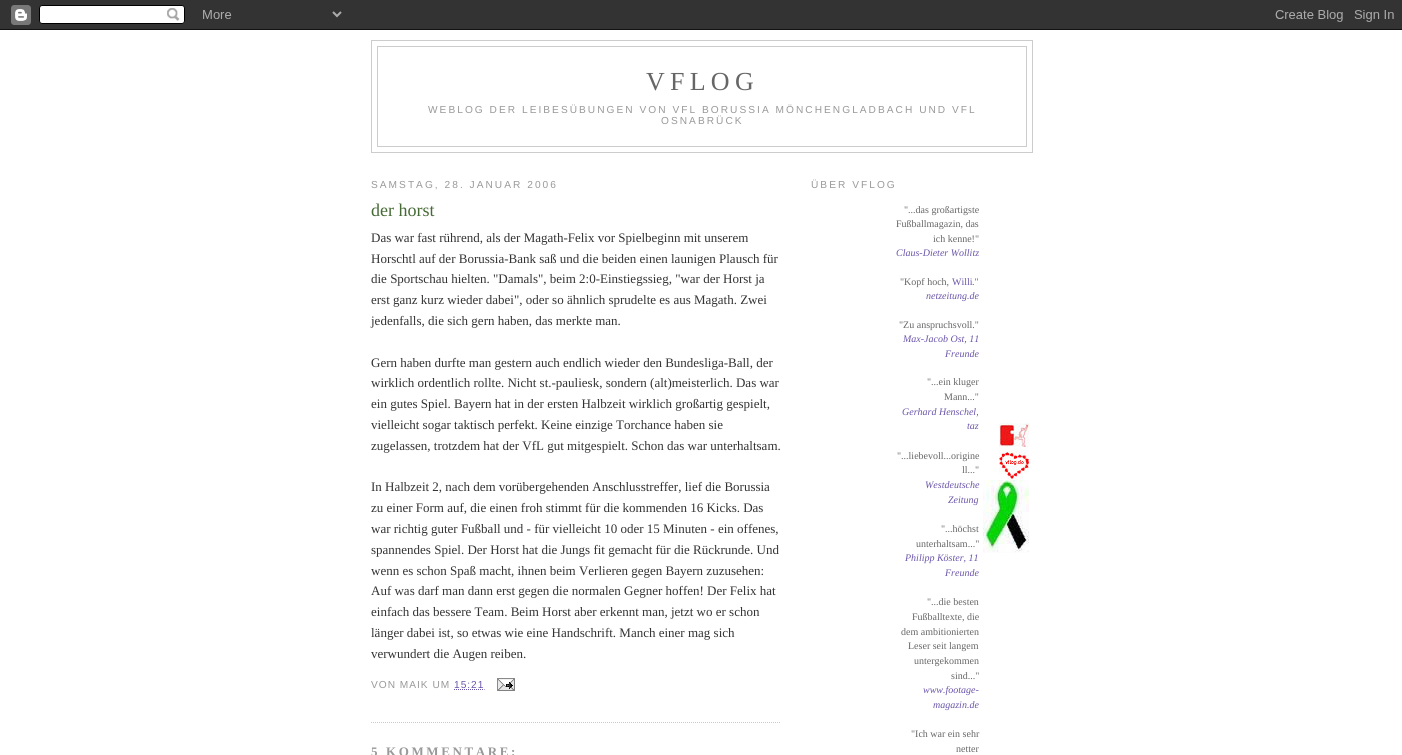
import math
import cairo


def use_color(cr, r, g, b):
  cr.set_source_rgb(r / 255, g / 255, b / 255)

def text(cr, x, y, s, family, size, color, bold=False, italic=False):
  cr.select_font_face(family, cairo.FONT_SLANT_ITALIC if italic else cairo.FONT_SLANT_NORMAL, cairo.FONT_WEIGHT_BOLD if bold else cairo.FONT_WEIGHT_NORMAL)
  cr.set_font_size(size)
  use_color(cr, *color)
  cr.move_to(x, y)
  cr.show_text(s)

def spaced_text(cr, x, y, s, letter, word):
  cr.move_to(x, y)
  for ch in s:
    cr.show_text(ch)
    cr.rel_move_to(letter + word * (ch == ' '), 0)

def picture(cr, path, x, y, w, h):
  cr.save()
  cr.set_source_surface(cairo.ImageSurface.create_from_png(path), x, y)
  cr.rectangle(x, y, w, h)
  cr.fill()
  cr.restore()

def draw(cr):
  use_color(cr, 255, 255, 255)
  cr.paint()
  picture(cr, "img_01.png", 0, 0, 1402, 30)
  cr.rectangle(371.5, 40.5, 661, 112)
  use_color(cr, 204, 204, 204)
  cr.set_line_width(1)
  cr.stroke()
  cr.rectangle(377.5, 46.5, 649, 100)
  cr.stroke()
  cr.new_path()
  cr.move_to(371, 722.5)
  cr.line_to(781, 722.5)
  cr.set_dash([1, 1])
  cr.stroke()
  cr.new_path()
  cr.move_to(454, 689.5)
  cr.line_to(484.5, 689.5)
  use_color(cr, 107, 85, 170)
  cr.stroke()
  picture(cr, "img_02.png", 497, 678, 18, 13)
  picture(cr, "img_03.png", 999, 423, 30, 24)
  picture(cr, "img_04.png", 999, 450, 30, 30)
  picture(cr, "img_05.png", 983, 480, 46, 73)
  cr.select_font_face("Liberation Serif")
  cr.set_font_size(26)
  use_color(cr, 102, 102, 102)
  spaced_text(cr, 646, 90, "VFLOG", 5.25, 0)
  cr.select_font_face("Liberation Sans")
  cr.set_font_size(10.15)
  use_color(cr, 153, 153, 153)
  spaced_text(cr, 428, 113, "WEBLOG DER LEIBESÜBUNGEN VON VFL BORUSSIA MÖNCHENGLADBACH UND VFL", 2.03, 0)
  spaced_text(cr, 661, 124, "OSNABRÜCK", 2.03, 0)
  spaced_text(cr, 371, 188, "SAMSTAG, 28. JANUAR 2006", 2.03, 0)
  text(cr, 371, 216, "der horst", "Liberation Serif", 18, (70, 106, 53))
  text(cr, 371, 242, "Das war fast rührend, als der Magath-Felix vor Spielbeginn mit unserem", "Liberation Serif", 13, (51, 51, 51))
  text(cr, 371, 263, "Horschtl auf der Borussia-Bank saß und die beiden einen launigen Plausch für", "Liberation Serif", 13, (51, 51, 51))
  text(cr, 371, 283, "die Sportschau hielten. \"Damals\", beim 2:0-Einstiegssieg, \"war der Horst ja", "Liberation Serif", 13, (51, 51, 51))
  text(cr, 371, 304, "erst ganz kurz wieder dabei\", oder so ähnlich sprudelte es aus Magath. Zwei", "Liberation Serif", 13, (51, 51, 51))
  text(cr, 371, 325, "jedenfalls, die sich gern haben, das merkte man.", "Liberation Serif", 13, (51, 51, 51))
  text(cr, 371, 367, "Gern haben durfte man gestern auch endlich wieder den Bundesliga-Ball, der", "Liberation Serif", 13, (51, 51, 51))
  text(cr, 371, 387, "wirklich ordentlich rollte. Nicht st.-pauliesk, sondern (alt)meisterlich. Das war", "Liberation Serif", 13, (51, 51, 51))
  text(cr, 371, 408, "ein gutes Spiel. Bayern hat in der ersten Halbzeit wirklich großartig gespielt,", "Liberation Serif", 13, (51, 51, 51))
  text(cr, 371, 429, "vielleicht sogar taktisch perfekt. Keine einzige Torchance haben sie", "Liberation Serif", 13, (51, 51, 51))
  text(cr, 371, 450, "zugelassen, trotzdem hat der VfL gut mitgespielt. Schon das war unterhaltsam.", "Liberation Serif", 13, (51, 51, 51))
  text(cr, 371, 491, "In Halbzeit 2, nach dem vorübergehenden Anschlusstreffer, lief die Borussia", "Liberation Serif", 13, (51, 51, 51))
  text(cr, 371, 512, "zu einer Form auf, die einen froh stimmt für die kommenden 16 Kicks. Das", "Liberation Serif", 13, (51, 51, 51))
  text(cr, 371, 533, "war richtig guter Fußball und - für vielleicht 10 oder 15 Minuten - ein offenes,", "Liberation Serif", 13, (51, 51, 51))
  text(cr, 371, 554, "spannendes Spiel. Der Horst hat die Jungs fit gemacht für die Rückrunde. Und", "Liberation Serif", 13, (51, 51, 51))
  text(cr, 371, 575, "wenn es schon Spaß macht, ihnen beim Verlieren gegen Bayern zuzusehen:", "Liberation Serif", 13, (51, 51, 51))
  text(cr, 371, 595, "Auf was darf man dann erst gegen die normalen Gegner hoffen! Der Felix hat", "Liberation Serif", 13, (51, 51, 51))
  text(cr, 371, 616, "einfach das bessere Team. Beim Horst aber erkennt man, jetzt wo er schon", "Liberation Serif", 13, (51, 51, 51))
  text(cr, 371, 637, "länger dabei ist, so etwas wie eine Handschrift. Manch einer mag sich", "Liberation Serif", 13, (51, 51, 51))
  text(cr, 371, 658, "verwundert die Augen reiben.", "Liberation Serif", 13, (51, 51, 51))
  cr.select_font_face("Liberation Sans")
  cr.set_font_size(10.15)
  use_color(cr, 153, 153, 153)
  spaced_text(cr, 371, 688, "VON MAIK UM", 1, 0)
  use_color(cr, 107, 85, 170)
  spaced_text(cr, 454, 688, "15:21", 1, 0)
  cr.select_font_face("Liberation Serif", cairo.FONT_SLANT_NORMAL, cairo.FONT_WEIGHT_BOLD)
  cr.set_font_size(13)
  use_color(cr, 153, 153, 153)
  spaced_text(cr, 371, 756, "5 KOMMENTARE:", 2.6, 0)
  cr.select_font_face("Liberation Sans")
  cr.set_font_size(10.15)
  spaced_text(cr, 811, 188, "ÜBER VFLOG", 2.03, 0)
  text(cr, 904, 213, "\"...das großartigste", "Liberation Serif", 10, (102, 102, 102))
  text(cr, 896, 227, "Fußballmagazin, das", "Liberation Serif", 10, (102, 102, 102))
  text(cr, 933, 242, "ich kenne!\"", "Liberation Serif", 10, (102, 102, 102))
  text(cr, 896, 256, "Claus-Dieter Wollitz", "Liberation Serif", 10, (107, 85, 170), italic=True)
  text(cr, 900, 285, "\"Kopf hoch,", "Liberation Serif", 10, (102, 102, 102))
  text(cr, 952, 285, "Willi", "Liberation Serif", 10, (107, 85, 170))
  text(cr, 972, 285, ".\"", "Liberation Serif", 10, (102, 102, 102))
  text(cr, 926, 299, "netzeitung.de", "Liberation Serif", 10, (107, 85, 170), italic=True)
  text(cr, 899, 328, "\"Zu anspruchsvoll.\"", "Liberation Serif", 10, (102, 102, 102))
  text(cr, 903, 342, "Max-Jacob Ost, 11", "Liberation Serif", 10, (107, 85, 170), italic=True)
  text(cr, 945, 357, "Freunde", "Liberation Serif", 10, (107, 85, 170), italic=True)
  text(cr, 927, 385, "\"...ein kluger", "Liberation Serif", 10, (102, 102, 102))
  text(cr, 944, 400, "Mann...\"", "Liberation Serif", 10, (102, 102, 102))
  text(cr, 902, 415, "Gerhard Henschel,", "Liberation Serif", 10, (107, 85, 170), italic=True)
  text(cr, 967, 429, "taz", "Liberation Serif", 10, (107, 85, 170), italic=True)
  text(cr, 897, 459, "\"...liebevoll...origine", "Liberation Serif", 10, (102, 102, 102))
  text(cr, 962, 473, "ll...\"", "Liberation Serif", 10, (102, 102, 102))
  text(cr, 925, 488, "Westdeutsche", "Liberation Serif", 10, (107, 85, 170), italic=True)
  text(cr, 948, 503, "Zeitung", "Liberation Serif", 10, (107, 85, 170), italic=True)
  text(cr, 941, 532, "\"...höchst", "Liberation Serif", 10, (102, 102, 102))
  text(cr, 916, 547, "unterhaltsam...\"", "Liberation Serif", 10, (102, 102, 102))
  text(cr, 905, 561, "Philipp Köster, 11", "Liberation Serif", 10, (107, 85, 170), italic=True)
  text(cr, 945, 576, "Freunde", "Liberation Serif", 10, (107, 85, 170), italic=True)
  text(cr, 927, 605, "\"...die besten", "Liberation Serif", 10, (102, 102, 102))
  text(cr, 912, 620, "Fußballtexte, die", "Liberation Serif", 10, (102, 102, 102))
  text(cr, 901, 635, "dem ambitionierten", "Liberation Serif", 10, (102, 102, 102))
  text(cr, 908, 649, "Leser seit langem", "Liberation Serif", 10, (102, 102, 102))
  text(cr, 914, 664, "untergekommen", "Liberation Serif", 10, (102, 102, 102))
  text(cr, 951, 679, "sind...\"", "Liberation Serif", 10, (102, 102, 102))
  text(cr, 923, 693, "www.footage-", "Liberation Serif", 10, (107, 85, 170), italic=True)
  text(cr, 933, 708, "magazin.de", "Liberation Serif", 10, (107, 85, 170), italic=True)
  text(cr, 911, 737, "\"Ich war ein sehr", "Liberation Serif", 10, (102, 102, 102))
  text(cr, 956, 752, "netter", "Liberation Serif", 10, (102, 102, 102))


surface = cairo.ImageSurface(cairo.FORMAT_RGB24, 1402, 755)
cr = cairo.Context(surface)
options = cairo.FontOptions()
options.set_hint_metrics(cairo.HINT_METRICS_OFF)
options.set_hint_style(cairo.HINT_STYLE_NONE)
cr.set_font_options(options)
cr.set_miter_limit(4)
draw(cr)
surface.write_to_png("out.png")
